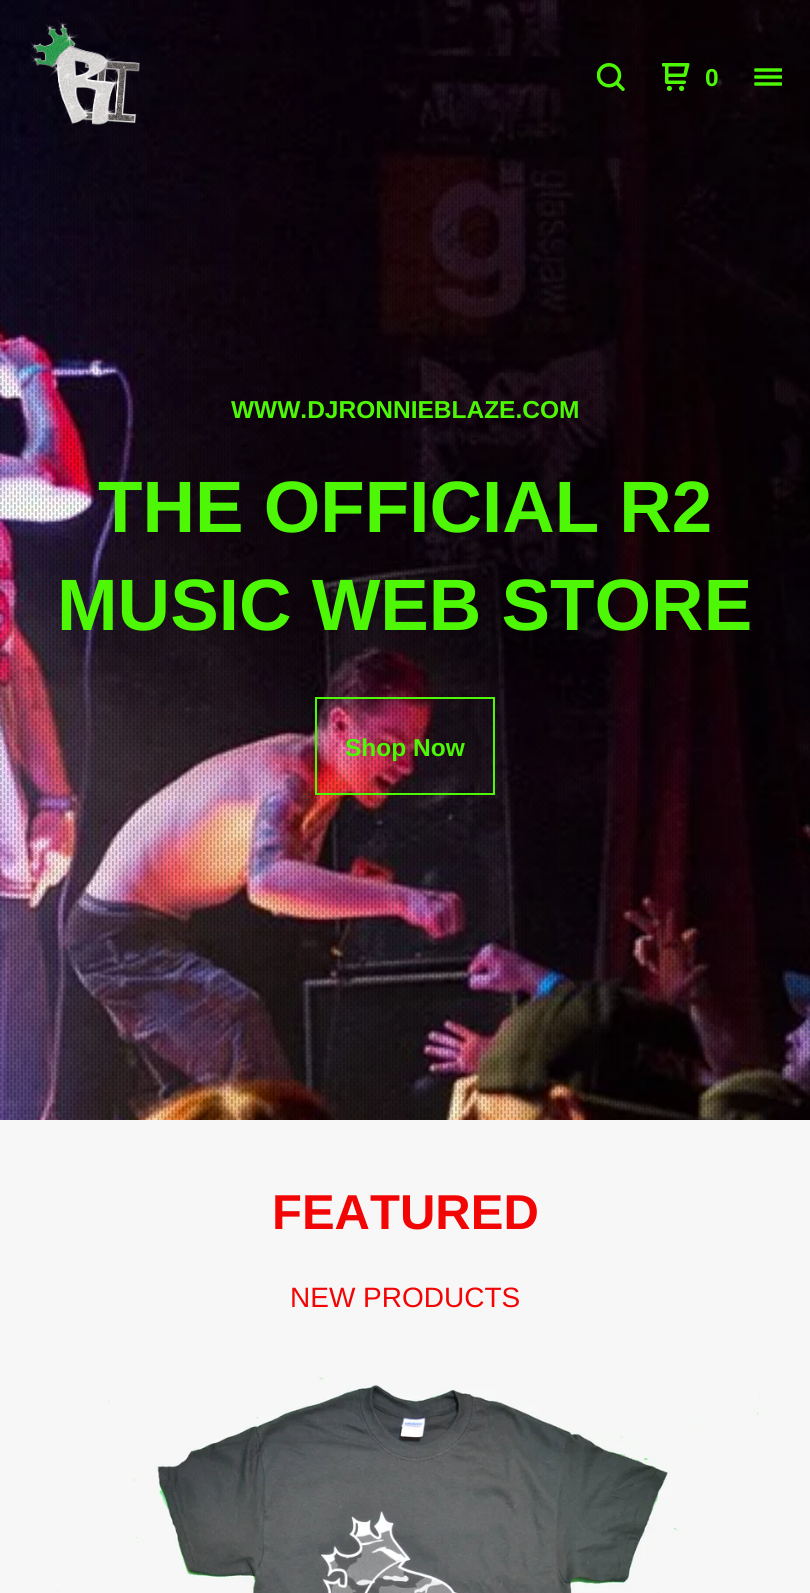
import math
import cairo


def use_color(cr, r, g, b):
  cr.set_source_rgb(r / 255, g / 255, b / 255)

def text(cr, x, y, s, family, size, color, bold=False, italic=False):
  cr.select_font_face(family, cairo.FONT_SLANT_ITALIC if italic else cairo.FONT_SLANT_NORMAL, cairo.FONT_WEIGHT_BOLD if bold else cairo.FONT_WEIGHT_NORMAL)
  cr.set_font_size(size)
  use_color(cr, *color)
  cr.move_to(x, y)
  cr.show_text(s)

def picture(cr, path, x, y, w, h):
  cr.save()
  cr.set_source_surface(cairo.ImageSurface.create_from_png(path), x, y)
  cr.rectangle(x, y, w, h)
  cr.fill()
  cr.restore()

def draw(cr):
  use_color(cr, 247, 247, 247)
  cr.paint()
  picture(cr, "img_05.png", 0, 0, 810, 1120)
  picture(cr, "img_06.png", 0, 0, 810, 1120)
  picture(cr, "img_01.png", 30, 20, 110, 105)
  picture(cr, "img_02.png", 597, 63, 28, 28)
  picture(cr, "img_03.png", 662, 63, 28, 28)
  picture(cr, "img_04.png", 754, 68, 28, 18)
  cr.rectangle(316, 698, 178, 96)
  use_color(cr, 77, 247, 5)
  cr.stroke()
  picture(cr, "img_07.png", 55, 1377, 705, 216)
  text(cr, 705, 86, "0", "Liberation Sans", 24.5, (77, 247, 5), bold=True)
  text(cr, 231, 418, "WWW.DJRONNIEBLAZE.COM", "Liberation Sans", 24.5, (77, 247, 5), bold=True)
  text(cr, 98, 532, "THE OFFICIAL R2", "Liberation Sans", 72.75, (77, 247, 5), bold=True)
  text(cr, 57, 630, "MUSIC WEB STORE", "Liberation Sans", 72.75, (77, 247, 5), bold=True)
  text(cr, 345, 756, "Shop Now", "Liberation Sans", 24.5, (77, 247, 5), bold=True)
  text(cr, 272, 1229, "FEATURED", "Liberation Sans", 49, (242, 5, 5), bold=True)
  text(cr, 290, 1307, "NEW PRODUCTS", "Liberation Sans", 28, (242, 5, 5))


surface = cairo.ImageSurface(cairo.FORMAT_RGB24, 810, 1593)
cr = cairo.Context(surface)
options = cairo.FontOptions()
options.set_hint_metrics(cairo.HINT_METRICS_OFF)
options.set_hint_style(cairo.HINT_STYLE_NONE)
cr.set_font_options(options)
cr.set_miter_limit(4)
draw(cr)
surface.write_to_png("out.png")
